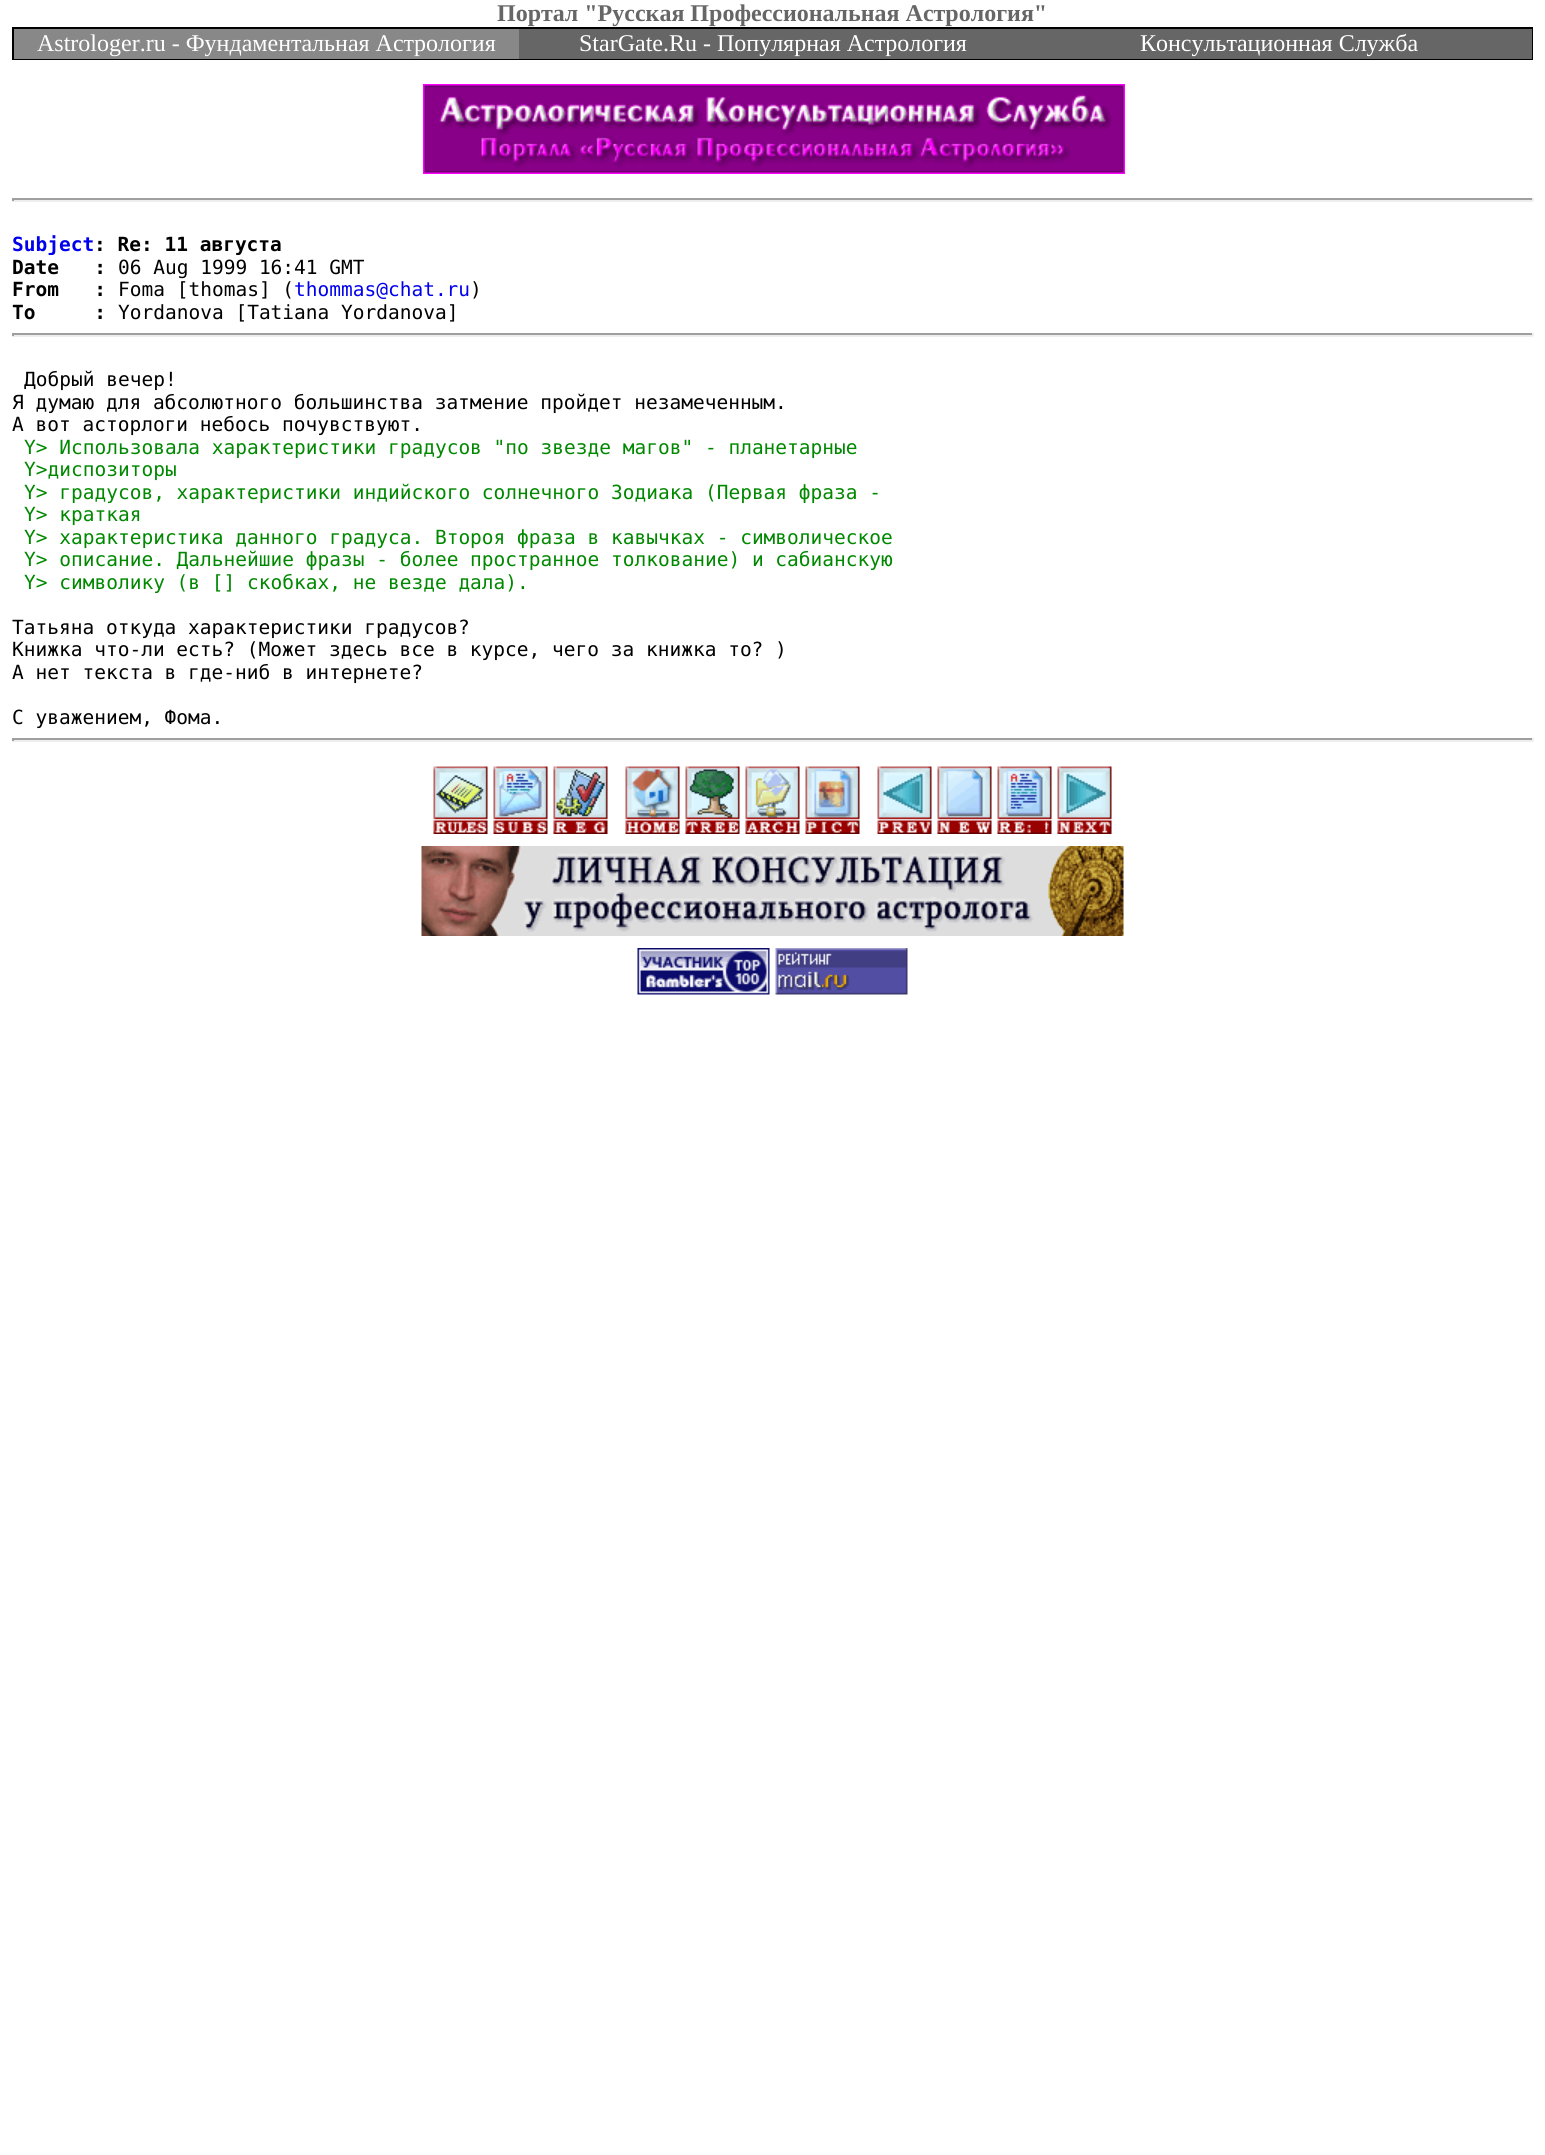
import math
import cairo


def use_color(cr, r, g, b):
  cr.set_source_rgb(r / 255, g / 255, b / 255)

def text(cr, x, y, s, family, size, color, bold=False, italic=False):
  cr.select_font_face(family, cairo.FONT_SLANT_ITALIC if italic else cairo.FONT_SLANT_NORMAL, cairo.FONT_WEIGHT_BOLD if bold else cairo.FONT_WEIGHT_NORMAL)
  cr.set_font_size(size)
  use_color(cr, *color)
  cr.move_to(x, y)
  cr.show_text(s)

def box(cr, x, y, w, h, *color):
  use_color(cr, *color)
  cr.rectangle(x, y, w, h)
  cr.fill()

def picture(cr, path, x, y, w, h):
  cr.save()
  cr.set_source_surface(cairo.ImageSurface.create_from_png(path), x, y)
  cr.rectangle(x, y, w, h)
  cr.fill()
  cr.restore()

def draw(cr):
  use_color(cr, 255, 255, 255)
  cr.paint()
  box(cr, 12, 27, 1521, 33, 0, 0, 0)
  box(cr, 519, 29, 1013, 30, 102, 102, 102)
  box(cr, 14, 29, 505, 30, 136, 136, 136)
  picture(cr, "img_01.png", 423, 84, 702, 90)
  box(cr, 12, 198, 1521, 2, 159, 159, 159)
  box(cr, 1532, 198, 2, 3, 238, 238, 238)
  box(cr, 12, 200, 1521, 2, 238, 238, 238)
  box(cr, 12, 198, 2, 3, 159, 159, 159)
  box(cr, 12, 333, 1521, 2, 159, 159, 159)
  box(cr, 1532, 333, 2, 3, 238, 238, 238)
  box(cr, 12, 335, 1521, 2, 238, 238, 238)
  box(cr, 12, 333, 2, 3, 159, 159, 159)
  box(cr, 12, 738, 1521, 2, 159, 159, 159)
  box(cr, 1532, 738, 2, 3, 238, 238, 238)
  box(cr, 12, 740, 1521, 2, 238, 238, 238)
  box(cr, 12, 738, 2, 3, 159, 159, 159)
  picture(cr, "img_02.png", 433, 766, 55, 68)
  picture(cr, "img_03.png", 493, 766, 55, 68)
  picture(cr, "img_04.png", 553, 766, 55, 68)
  picture(cr, "img_05.png", 625, 766, 55, 68)
  picture(cr, "img_06.png", 685, 766, 55, 68)
  picture(cr, "img_07.png", 745, 766, 55, 68)
  picture(cr, "img_08.png", 805, 766, 55, 68)
  picture(cr, "img_09.png", 877, 766, 55, 68)
  picture(cr, "img_10.png", 937, 766, 55, 68)
  picture(cr, "img_11.png", 997, 766, 55, 68)
  picture(cr, "img_12.png", 1057, 766, 55, 68)
  picture(cr, "img_13.png", 421, 846, 703, 90)
  picture(cr, "img_14.png", 637, 948, 133, 47)
  picture(cr, "img_15.png", 775, 948, 133, 47)
  text(cr, 497, 21, "Портал \"Русская Профессиональная Астрология\"", "Liberation Serif", 24, (102, 102, 102), bold=True)
  text(cr, 37, 51, "Astrologer.ru - Фундаментальная Астрология", "Liberation Serif", 24, (255, 255, 255))
  text(cr, 579, 51, "StarGate.Ru - Популярная Астрология", "Liberation Serif", 24, (255, 255, 255))
  text(cr, 1140, 51, "Консультационная Служба", "Liberation Serif", 24, (255, 255, 255))
  text(cr, 12, 251, "Subject", "DejaVu Sans Mono", 19.5, (0, 0, 238), bold=True)
  text(cr, 94, 251, ": Re: 11 августа", "DejaVu Sans Mono", 19.5, (0, 0, 0), bold=True)
  text(cr, 12, 274, "Date   :", "DejaVu Sans Mono", 19.5, (0, 0, 0), bold=True)
  text(cr, 118, 274, "06 Aug 1999 16:41 GMT", "DejaVu Sans Mono", 19.5, (0, 0, 0))
  text(cr, 12, 296, "From   :", "DejaVu Sans Mono", 19.5, (0, 0, 0), bold=True)
  text(cr, 118, 296, "Foma [thomas] (", "DejaVu Sans Mono", 19.5, (0, 0, 0))
  text(cr, 294, 296, "thommas@chat.ru", "DejaVu Sans Mono", 19.5, (0, 0, 238))
  text(cr, 470, 296, ")", "DejaVu Sans Mono", 19.5, (0, 0, 0))
  text(cr, 12, 319, "To     :", "DejaVu Sans Mono", 19.5, (0, 0, 0), bold=True)
  text(cr, 118, 319, "Yordanova [Tatiana Yordanova]", "DejaVu Sans Mono", 19.5, (0, 0, 0))
  text(cr, 24, 386, "Добрый вечер!", "DejaVu Sans Mono", 19.5, (0, 0, 0))
  text(cr, 12, 409, "Я думаю для абсолютного большинства затмение пройдет незамеченным.", "DejaVu Sans Mono", 19.5, (0, 0, 0))
  text(cr, 12, 431, "А вот асторлоги небось почувствуют.", "DejaVu Sans Mono", 19.5, (0, 0, 0))
  text(cr, 24, 454, "Y> Использовала характеристики градусов \"по звезде магов\" - планетарные", "DejaVu Sans Mono", 19.5, (0, 136, 0))
  text(cr, 24, 476, "Y>диспозиторы", "DejaVu Sans Mono", 19.5, (0, 136, 0))
  text(cr, 24, 499, "Y> градусов, характеристики индийского солнечного Зодиака (Первая фраза -", "DejaVu Sans Mono", 19.5, (0, 136, 0))
  text(cr, 24, 521, "Y> краткая", "DejaVu Sans Mono", 19.5, (0, 136, 0))
  text(cr, 24, 544, "Y> характеристика данного градуса. Второя фраза в кавычках - символическое", "DejaVu Sans Mono", 19.5, (0, 136, 0))
  text(cr, 24, 566, "Y> описание. Дальнейшие фразы - более пространное толкование) и сабианскую", "DejaVu Sans Mono", 19.5, (0, 136, 0))
  text(cr, 24, 589, "Y> символику (в [] скобках, не везде дала).", "DejaVu Sans Mono", 19.5, (0, 136, 0))
  text(cr, 12, 634, "Татьяна откуда характеристики градусов?", "DejaVu Sans Mono", 19.5, (0, 0, 0))
  text(cr, 12, 656, "Книжка что-ли есть? (Может здесь все в курсе, чего за книжка то? )", "DejaVu Sans Mono", 19.5, (0, 0, 0))
  text(cr, 12, 679, "А нет текста в где-ниб в интернете?", "DejaVu Sans Mono", 19.5, (0, 0, 0))
  text(cr, 12, 724, "С уважением, Фома.", "DejaVu Sans Mono", 19.5, (0, 0, 0))


surface = cairo.ImageSurface(cairo.FORMAT_RGB24, 1545, 2155)
cr = cairo.Context(surface)
options = cairo.FontOptions()
options.set_hint_metrics(cairo.HINT_METRICS_OFF)
options.set_hint_style(cairo.HINT_STYLE_NONE)
cr.set_font_options(options)
cr.set_miter_limit(4)
draw(cr)
surface.write_to_png("out.png")
